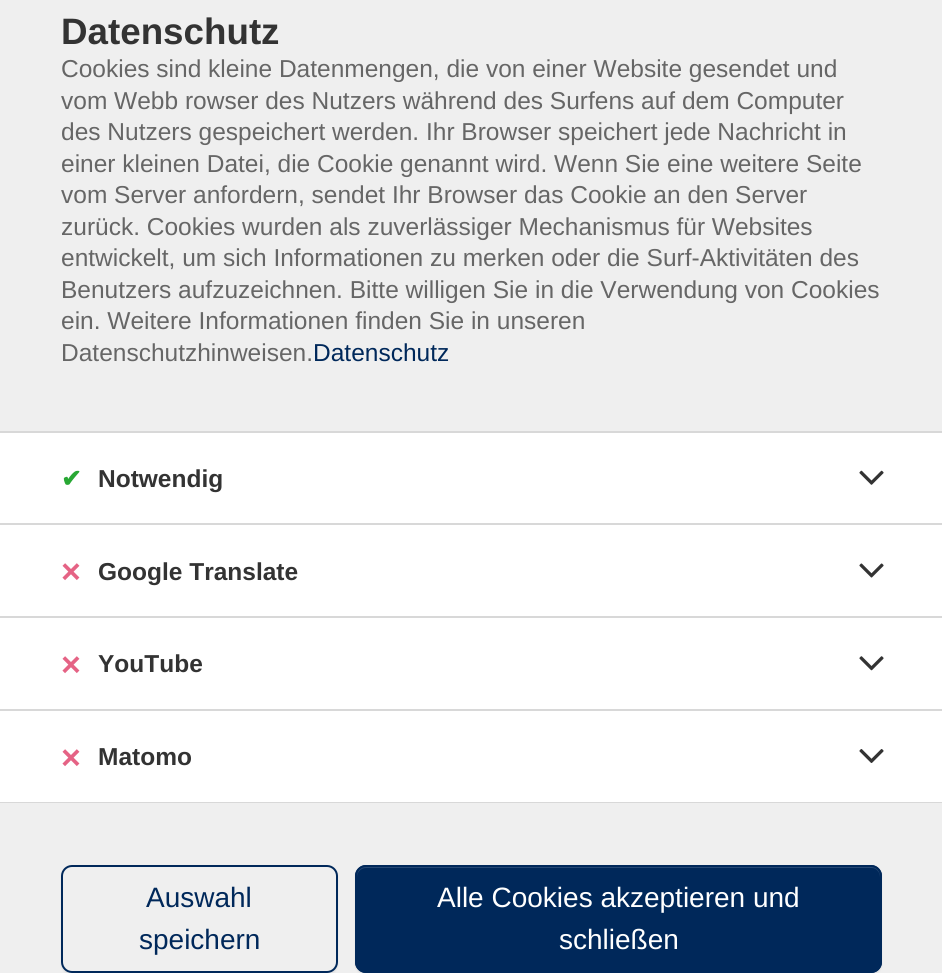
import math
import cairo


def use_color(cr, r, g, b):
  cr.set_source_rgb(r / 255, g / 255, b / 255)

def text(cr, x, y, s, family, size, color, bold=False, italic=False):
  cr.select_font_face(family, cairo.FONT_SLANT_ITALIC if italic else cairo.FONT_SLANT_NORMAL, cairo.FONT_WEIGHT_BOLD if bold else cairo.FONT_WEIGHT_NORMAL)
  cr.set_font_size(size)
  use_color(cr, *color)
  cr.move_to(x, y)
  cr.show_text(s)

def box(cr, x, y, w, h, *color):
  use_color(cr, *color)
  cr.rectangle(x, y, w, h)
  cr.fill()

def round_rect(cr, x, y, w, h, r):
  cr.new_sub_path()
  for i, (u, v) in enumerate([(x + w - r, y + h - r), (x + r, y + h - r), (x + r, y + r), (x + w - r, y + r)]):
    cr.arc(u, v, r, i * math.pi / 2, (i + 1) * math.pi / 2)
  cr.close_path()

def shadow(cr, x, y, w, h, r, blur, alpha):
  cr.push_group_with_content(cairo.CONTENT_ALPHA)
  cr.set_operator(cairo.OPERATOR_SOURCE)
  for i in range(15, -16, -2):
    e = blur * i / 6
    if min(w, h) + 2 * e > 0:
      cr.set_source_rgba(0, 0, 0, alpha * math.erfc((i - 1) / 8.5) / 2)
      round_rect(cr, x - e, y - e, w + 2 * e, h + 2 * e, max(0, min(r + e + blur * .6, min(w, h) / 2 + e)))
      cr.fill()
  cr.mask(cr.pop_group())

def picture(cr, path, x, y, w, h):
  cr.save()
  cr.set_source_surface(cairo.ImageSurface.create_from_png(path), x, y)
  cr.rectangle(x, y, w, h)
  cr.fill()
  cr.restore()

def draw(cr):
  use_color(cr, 239, 239, 239)
  cr.paint()
  box(cr, 0, 431, 942, 2, 216, 216, 216)
  box(cr, 0, 433, 942, 369, 255, 255, 255)
  box(cr, 0, 523, 942, 2, 216, 216, 216)
  picture(cr, "img_01.png", 859, 470, 25, 15)
  box(cr, 0, 616, 942, 2, 216, 216, 216)
  picture(cr, "img_02.png", 859, 563, 25, 15)
  box(cr, 0, 709, 942, 2, 216, 216, 216)
  picture(cr, "img_03.png", 859, 656, 25, 15)
  box(cr, 0, 802, 942, 1, 216, 216, 216)
  picture(cr, "img_04.png", 859, 749, 25, 14)
  cr.save()
  cr.set_fill_rule(cairo.FILL_RULE_EVEN_ODD)
  cr.new_path()
  cr.move_to(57, 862)
  cr.line_to(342, 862)
  cr.line_to(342, 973)
  cr.line_to(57, 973)
  cr.close_path()
  cr.move_to(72, 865)
  cr.line_to(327, 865)
  cr.curve_to(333, 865, 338, 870, 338, 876)
  cr.line_to(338, 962)
  cr.curve_to(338, 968, 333, 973, 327, 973)
  cr.line_to(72, 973)
  cr.curve_to(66, 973, 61, 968, 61, 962)
  cr.line_to(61, 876)
  cr.curve_to(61, 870, 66, 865, 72, 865)
  cr.close_path()
  cr.clip()
  use_color(cr, 0, 0, 0)
  shadow(cr, 61, 866, 277, 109, 11, 1, 0.07)
  cr.restore()
  round_rect(cr, 62, 866, 275, 106, 10)
  use_color(cr, 0, 40, 90)
  cr.stroke()
  use_color(cr, 0, 0, 0)
  shadow(cr, 355, 866, 527, 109, 11, 1, 0.07)
  use_color(cr, 0, 40, 90)
  round_rect(cr, 355, 865, 527, 108, 11)
  cr.fill()
  use_color(cr, 38, 72, 115)
  cr.new_path()
  cr.move_to(366, 868)
  cr.line_to(872, 868)
  cr.curve_to(876, 868, 880, 872, 880, 877)
  cr.line_to(880, 875)
  cr.curve_to(880, 870, 876, 866, 871, 866)
  cr.line_to(366, 866)
  cr.curve_to(361, 866, 357, 870, 357, 875)
  cr.line_to(357, 877)
  cr.curve_to(357, 872, 361, 868, 366, 868)
  cr.close_path()
  cr.fill()
  round_rect(cr, 356, 866, 525, 106, 10)
  use_color(cr, 0, 40, 90)
  cr.stroke()
  text(cr, 61, 44, "Datenschutz", "Liberation Sans", 36.75, (51, 51, 51), bold=True)
  text(cr, 61, 77, "Cookies sind kleine Datenmengen, die von einer Website gesendet und", "Liberation Sans", 24.5, (102, 102, 102))
  text(cr, 61, 109, "vom Webb rowser des Nutzers während des Surfens auf dem Computer", "Liberation Sans", 24.5, (102, 102, 102))
  text(cr, 61, 140, "des Nutzers gespeichert werden. Ihr Browser speichert jede Nachricht in", "Liberation Sans", 24.5, (102, 102, 102))
  text(cr, 61, 172, "einer kleinen Datei, die Cookie genannt wird. Wenn Sie eine weitere Seite", "Liberation Sans", 24.5, (102, 102, 102))
  text(cr, 61, 203, "vom Server anfordern, sendet Ihr Browser das Cookie an den Server", "Liberation Sans", 24.5, (102, 102, 102))
  text(cr, 61, 235, "zurück. Cookies wurden als zuverlässiger Mechanismus für Websites", "Liberation Sans", 24.5, (102, 102, 102))
  text(cr, 61, 266, "entwickelt, um sich Informationen zu merken oder die Surf-Aktivitäten des", "Liberation Sans", 24.5, (102, 102, 102))
  text(cr, 61, 298, "Benutzers aufzuzeichnen. Bitte willigen Sie in die Verwendung von Cookies", "Liberation Sans", 24.5, (102, 102, 102))
  text(cr, 61, 329, "ein. Weitere Informationen finden Sie in unseren", "Liberation Sans", 24.5, (102, 102, 102))
  text(cr, 61, 361, "Datenschutzhinweisen.", "Liberation Sans", 24.5, (102, 102, 102))
  text(cr, 313, 361, "Datenschutz", "Liberation Sans", 24.5, (0, 40, 90))
  text(cr, 61, 487, "✔", "DejaVu Sans", 24.5, (40, 168, 52), bold=True)
  text(cr, 98, 487, "Notwendig", "Liberation Sans", 24.5, (51, 51, 51), bold=True)
  text(cr, 61, 583, "×", "Liberation Sans", 34, (229, 99, 133), bold=True)
  text(cr, 98, 580, "Google Translate", "Liberation Sans", 24.5, (51, 51, 51), bold=True)
  text(cr, 61, 676, "×", "Liberation Sans", 34, (229, 99, 133), bold=True)
  text(cr, 98, 672, "YouTube", "Liberation Sans", 24.5, (51, 51, 51), bold=True)
  text(cr, 61, 769, "×", "Liberation Sans", 34, (229, 99, 133), bold=True)
  text(cr, 98, 765, "Matomo", "Liberation Sans", 24.5, (51, 51, 51), bold=True)
  text(cr, 146, 907, "Auswahl", "Liberation Sans", 28, (0, 40, 90))
  text(cr, 139, 949, "speichern", "Liberation Sans", 28, (0, 40, 90))
  text(cr, 437, 907, "Alle Cookies akzeptieren und", "Liberation Sans", 28, (255, 255, 255))
  text(cr, 559, 949, "schließen", "Liberation Sans", 28, (255, 255, 255))


surface = cairo.ImageSurface(cairo.FORMAT_RGB24, 942, 973)
cr = cairo.Context(surface)
options = cairo.FontOptions()
options.set_hint_metrics(cairo.HINT_METRICS_OFF)
options.set_hint_style(cairo.HINT_STYLE_NONE)
cr.set_font_options(options)
cr.set_miter_limit(4)
draw(cr)
surface.write_to_png("out.png")
